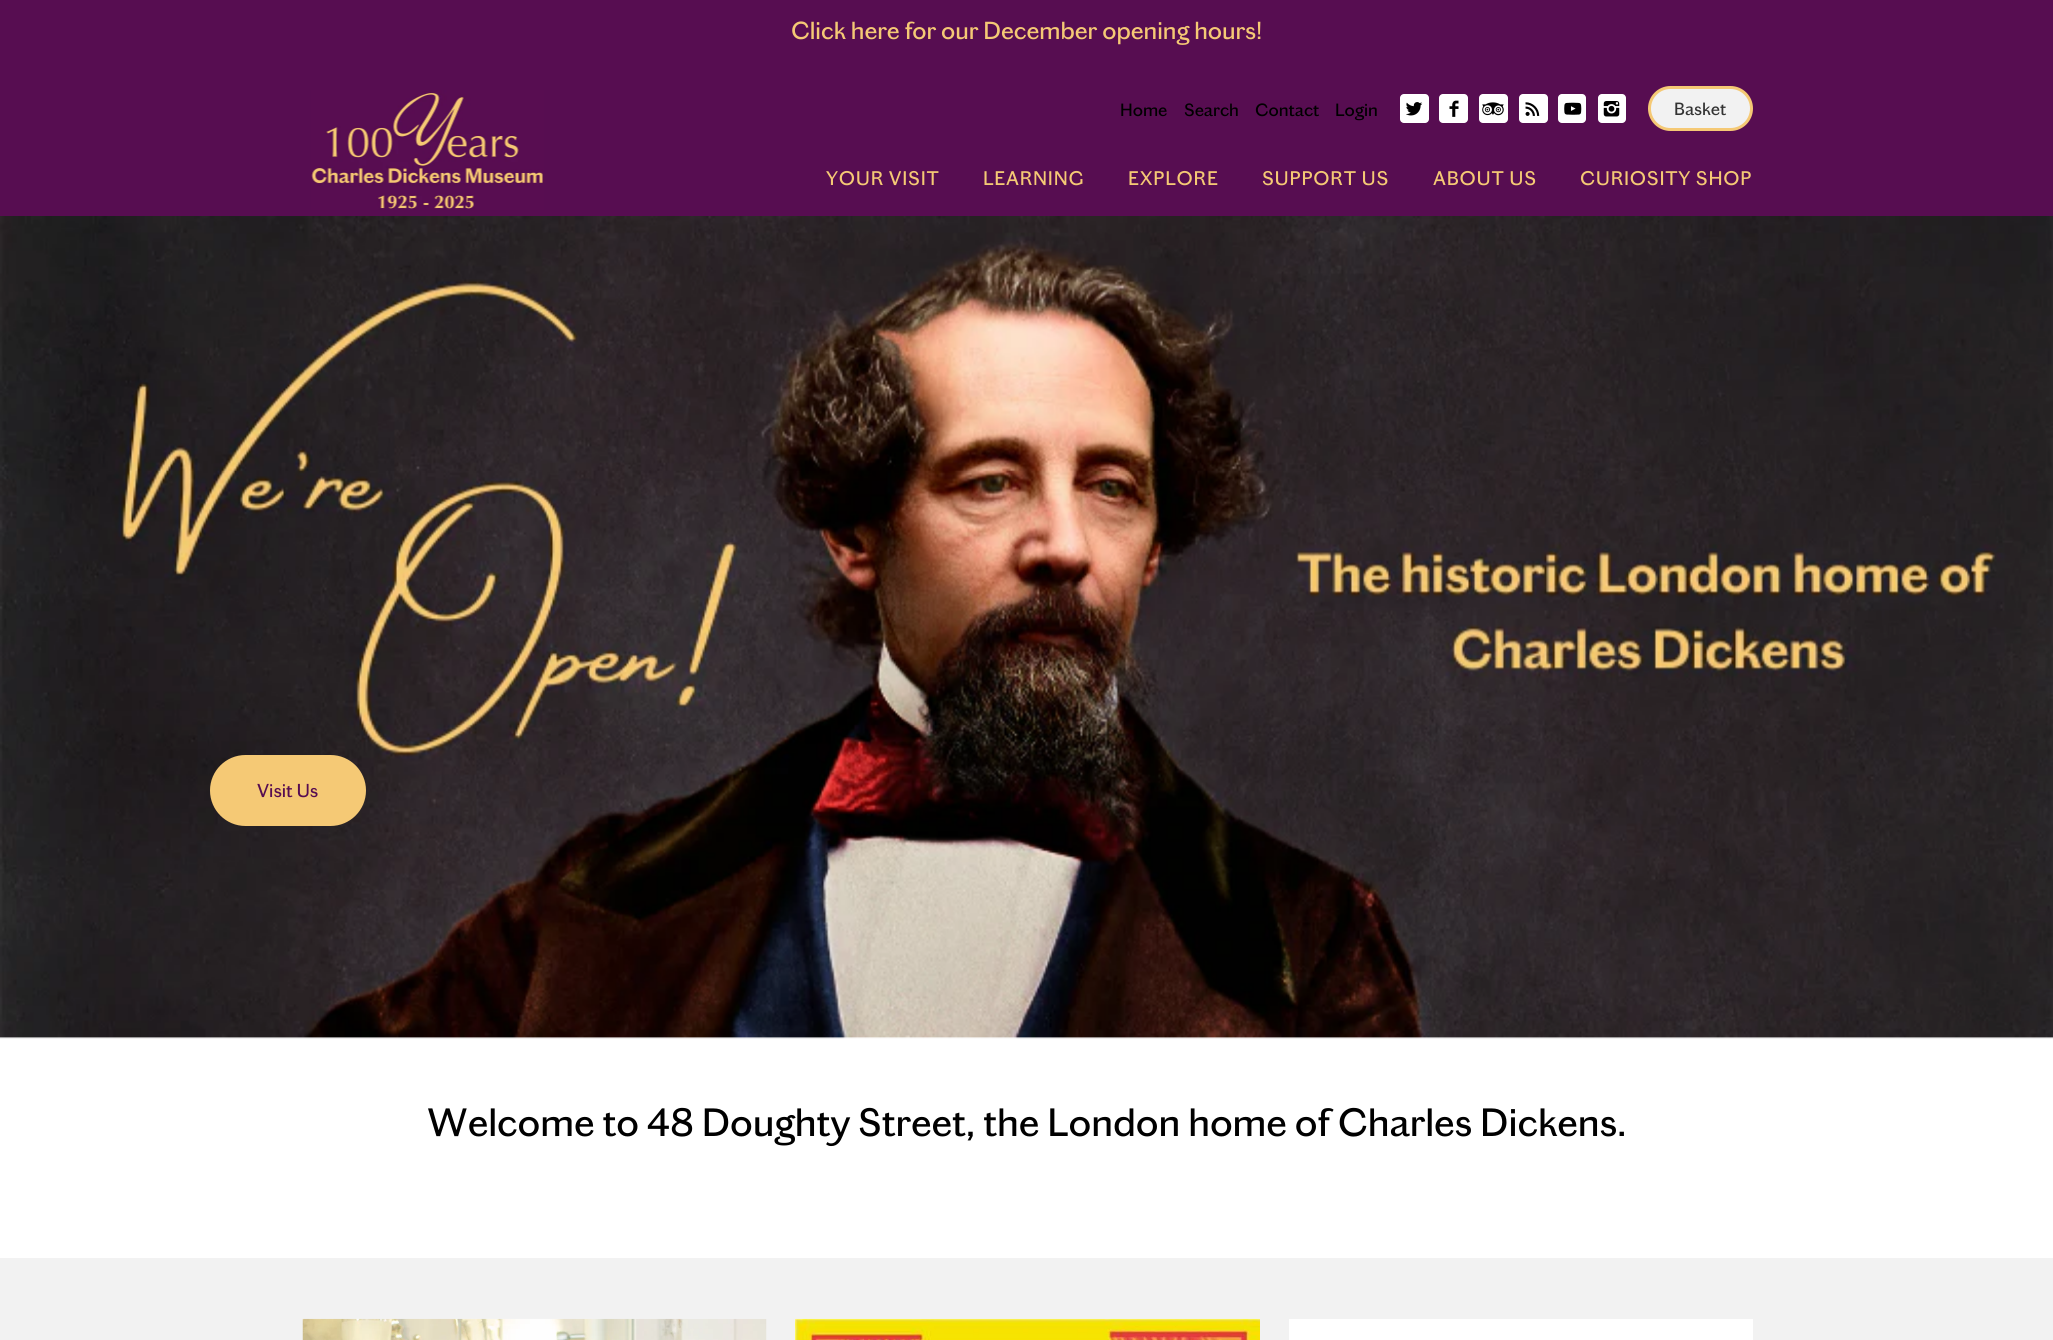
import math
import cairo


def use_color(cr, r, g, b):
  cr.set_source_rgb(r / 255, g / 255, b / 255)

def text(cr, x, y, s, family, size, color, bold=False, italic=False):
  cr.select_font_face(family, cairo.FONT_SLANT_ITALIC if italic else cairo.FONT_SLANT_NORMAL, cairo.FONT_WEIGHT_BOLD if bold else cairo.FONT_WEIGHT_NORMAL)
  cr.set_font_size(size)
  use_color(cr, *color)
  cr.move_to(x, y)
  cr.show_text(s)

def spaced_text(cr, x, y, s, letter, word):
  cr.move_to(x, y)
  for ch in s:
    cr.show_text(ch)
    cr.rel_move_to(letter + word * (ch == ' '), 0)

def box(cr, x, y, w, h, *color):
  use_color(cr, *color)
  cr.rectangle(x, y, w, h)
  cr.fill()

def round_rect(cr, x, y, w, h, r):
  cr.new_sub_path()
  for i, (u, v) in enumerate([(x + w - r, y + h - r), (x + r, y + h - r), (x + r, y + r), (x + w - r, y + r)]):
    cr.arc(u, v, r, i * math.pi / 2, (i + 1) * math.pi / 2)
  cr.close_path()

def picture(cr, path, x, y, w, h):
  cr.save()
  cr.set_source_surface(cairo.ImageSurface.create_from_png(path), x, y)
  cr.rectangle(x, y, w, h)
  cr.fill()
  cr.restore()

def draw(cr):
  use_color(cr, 255, 255, 255)
  cr.paint()
  box(cr, 0, 0, 2053, 216, 87, 13, 81)
  picture(cr, "img_01.png", 311, 90, 233, 120)
  use_color(cr, 255, 255, 255)
  round_rect(cr, 1400, 94, 29, 29, 4)
  cr.fill()
  picture(cr, "img_02.png", 1406, 102, 17, 14)
  round_rect(cr, 1439, 94, 29, 29, 4)
  cr.fill()
  picture(cr, "img_03.png", 1449, 100, 10, 17)
  round_rect(cr, 1479, 94, 29, 29, 4)
  cr.fill()
  picture(cr, "img_04.png", 1482, 102, 22, 14)
  round_rect(cr, 1519, 94, 29, 29, 4)
  cr.fill()
  picture(cr, "img_05.png", 1525, 102, 15, 14)
  round_rect(cr, 1558, 94, 28, 29, 4)
  cr.fill()
  picture(cr, "img_06.png", 1564, 102, 18, 13)
  round_rect(cr, 1598, 94, 28, 29, 4)
  cr.fill()
  picture(cr, "img_07.png", 1603, 101, 17, 16)
  use_color(cr, 242, 242, 242)
  round_rect(cr, 1649.5, 87.5, 102, 42, 21)
  cr.fill_preserve()
  use_color(cr, 245, 201, 117)
  cr.set_line_width(3)
  cr.stroke()
  picture(cr, "img_08.png", 0, 216, 2053, 823)
  round_rect(cr, 211.5, 756.5, 153, 68, 34)
  cr.fill_preserve()
  cr.stroke()
  box(cr, 0, 1258, 2053, 82, 242, 242, 242)
  picture(cr, "img_09.png", 302, 1318, 465, 22)
  picture(cr, "img_10.png", 795, 1318, 465, 22)
  box(cr, 1289, 1319, 464, 21, 255, 255, 255)
  text(cr, 791, 39, "Click here for our December opening hours!", "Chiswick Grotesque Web", 25, (245, 201, 117))
  text(cr, 1120, 116, "Home", "Chiswick Grotesque Web", 18, (0, 0, 0))
  text(cr, 1184, 116, "Search", "Chiswick Grotesque Web", 18, (0, 0, 0))
  text(cr, 1255, 116, "Contact", "Chiswick Grotesque Web", 18, (0, 0, 0))
  text(cr, 1335, 116, "Login", "Chiswick Grotesque Web", 18, (0, 0, 0))
  text(cr, 1674, 115, "Basket", "Chiswick Grotesque Web", 18, (51, 51, 51))
  cr.set_font_size(20)
  use_color(cr, 245, 201, 117)
  spaced_text(cr, 826, 185, "YOUR VISIT", 0.75, 0)
  spaced_text(cr, 983, 185, "LEARNING", 0.75, 0)
  spaced_text(cr, 1128, 185, "EXPLORE", 0.75, 0)
  spaced_text(cr, 1262, 185, "SUPPORT US", 0.75, 0)
  spaced_text(cr, 1433, 185, "ABOUT US", 0.75, 0)
  spaced_text(cr, 1580, 185, "CURIOSITY SHOP", 0.75, 0)
  text(cr, 257, 797, "Visit Us", "Chiswick Grotesque Web", 19, (87, 13, 81))
  text(cr, 427, 1136, "Welcome to 48 Doughty Street, the London home of Charles Dickens.", "Chiswick Grotesque Web", 40, (0, 0, 0))


surface = cairo.ImageSurface(cairo.FORMAT_RGB24, 2053, 1340)
cr = cairo.Context(surface)
options = cairo.FontOptions()
options.set_hint_metrics(cairo.HINT_METRICS_OFF)
options.set_hint_style(cairo.HINT_STYLE_NONE)
cr.set_font_options(options)
cr.set_miter_limit(4)
draw(cr)
surface.write_to_png("out.png")
